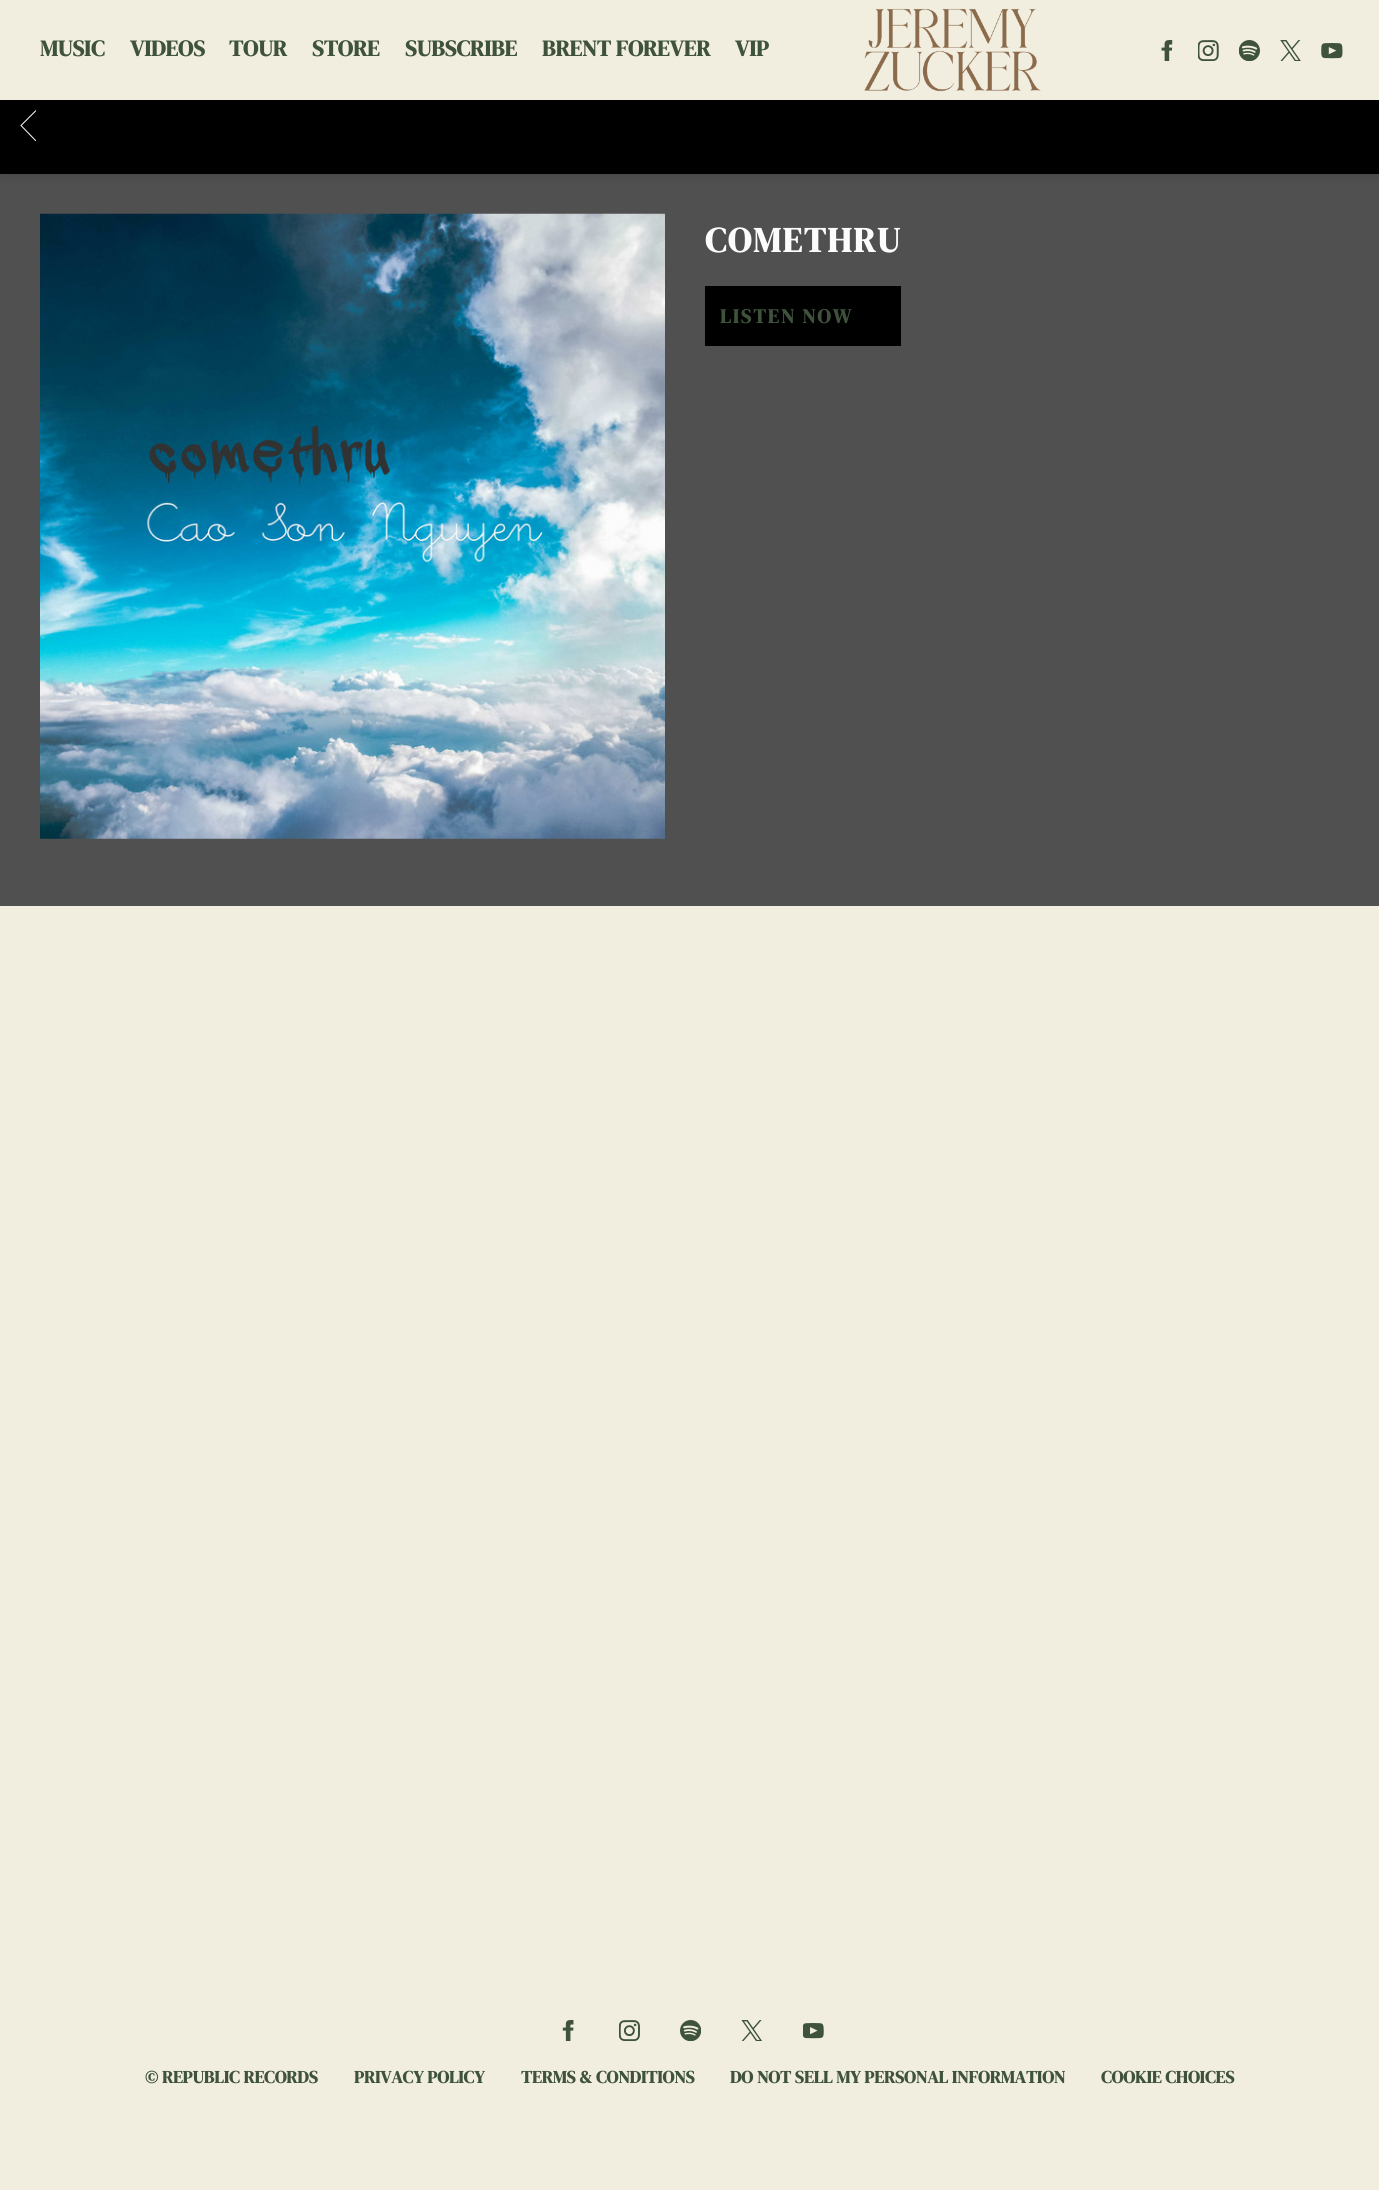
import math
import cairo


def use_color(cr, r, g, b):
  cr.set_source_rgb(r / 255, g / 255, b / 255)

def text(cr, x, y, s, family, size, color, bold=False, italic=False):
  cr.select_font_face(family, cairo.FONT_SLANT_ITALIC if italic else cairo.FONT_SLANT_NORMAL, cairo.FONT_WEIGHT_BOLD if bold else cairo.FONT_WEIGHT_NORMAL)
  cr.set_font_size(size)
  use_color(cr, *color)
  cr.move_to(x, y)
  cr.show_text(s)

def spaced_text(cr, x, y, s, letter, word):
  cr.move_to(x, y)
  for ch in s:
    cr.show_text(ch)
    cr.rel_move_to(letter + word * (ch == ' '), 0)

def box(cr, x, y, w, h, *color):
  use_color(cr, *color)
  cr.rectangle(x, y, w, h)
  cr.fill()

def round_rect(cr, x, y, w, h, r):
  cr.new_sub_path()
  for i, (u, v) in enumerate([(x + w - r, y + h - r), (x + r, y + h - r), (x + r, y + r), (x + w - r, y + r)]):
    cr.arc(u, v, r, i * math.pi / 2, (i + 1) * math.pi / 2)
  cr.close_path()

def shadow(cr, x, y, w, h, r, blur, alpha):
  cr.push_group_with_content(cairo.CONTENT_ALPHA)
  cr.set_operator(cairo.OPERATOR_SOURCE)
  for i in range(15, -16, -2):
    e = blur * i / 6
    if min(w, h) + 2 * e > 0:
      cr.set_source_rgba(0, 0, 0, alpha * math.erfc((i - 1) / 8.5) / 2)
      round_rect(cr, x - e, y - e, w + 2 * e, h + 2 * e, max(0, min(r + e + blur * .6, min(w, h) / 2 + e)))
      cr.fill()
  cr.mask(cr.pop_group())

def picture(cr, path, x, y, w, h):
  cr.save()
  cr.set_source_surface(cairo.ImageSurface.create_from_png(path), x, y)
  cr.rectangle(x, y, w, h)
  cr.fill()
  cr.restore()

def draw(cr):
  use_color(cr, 241, 238, 224)
  cr.paint()
  picture(cr, "img_01.png", 864, 8, 177, 84)
  picture(cr, "img_02.png", 1161, 40, 12, 21)
  picture(cr, "img_03.png", 1198, 40, 21, 21)
  picture(cr, "img_04.png", 1239, 40, 21, 21)
  picture(cr, "img_05.png", 1280, 40, 21, 21)
  picture(cr, "img_06.png", 1321, 43, 22, 16)
  box(cr, 0, 174, 1379, 732, 80, 80, 80)
  use_color(cr, 0, 0, 0)
  shadow(cr, 0, 104, 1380, 74, 0, 3, 0.1)
  box(cr, 0, 100, 1379, 74, 0, 0, 0)
  cr.save()
  cr.rectangle(20, 110, 16, 31)
  cr.clip()
  cr.new_path()
  cr.move_to(36, 141)
  cr.line_to(21, 125.5)
  cr.line_to(36, 110.5)
  use_color(cr, 252, 252, 252)
  cr.set_line_width(1)
  cr.stroke()
  cr.restore()
  picture(cr, "img_07.png", 40, 213, 625, 626)
  box(cr, 705, 286, 196, 60, 0, 0, 0)
  picture(cr, "img_08.png", 562, 2020, 12, 21)
  picture(cr, "img_09.png", 619, 2020, 21, 21)
  picture(cr, "img_10.png", 680, 2020, 21, 21)
  picture(cr, "img_11.png", 741, 2020, 21, 21)
  picture(cr, "img_12.png", 803, 2023, 21, 16)
  text(cr, 40, 56, "MUSIC", "DM Serif Display", 22.5, (62, 82, 60), bold=True)
  text(cr, 130, 56, "VIDEOS", "DM Serif Display", 22.5, (62, 82, 60), bold=True)
  text(cr, 229, 56, "TOUR", "DM Serif Display", 22.5, (62, 82, 60), bold=True)
  text(cr, 312, 56, "STORE", "DM Serif Display", 22.5, (62, 82, 60), bold=True)
  text(cr, 405, 56, "SUBSCRIBE", "DM Serif Display", 22.5, (62, 82, 60), bold=True)
  text(cr, 542, 56, "BRENT FOREVER", "DM Serif Display", 22.5, (62, 82, 60), bold=True)
  text(cr, 735, 56, "VIP", "DM Serif Display", 22.5, (62, 82, 60), bold=True)
  cr.set_font_size(35)
  use_color(cr, 252, 252, 252)
  spaced_text(cr, 705, 252, "COMETHRU", 1.75, 0)
  cr.set_font_size(20)
  use_color(cr, 62, 82, 60)
  spaced_text(cr, 720, 323, "LISTEN NOW", 2, 0)
  text(cr, 145, 2083, "© REPUBLIC RECORDS", "DM Serif Display", 17.5, (62, 82, 60), bold=True)
  text(cr, 354, 2083, "PRIVACY POLICY", "DM Serif Display", 17.5, (62, 82, 60), bold=True)
  text(cr, 521, 2083, "TERMS & CONDITIONS", "DM Serif Display", 17.5, (62, 82, 60), bold=True)
  text(cr, 730, 2083, "DO NOT SELL MY PERSONAL INFORMATION", "DM Serif Display", 17.5, (62, 82, 60), bold=True)
  text(cr, 1101, 2083, "COOKIE CHOICES", "DM Serif Display", 17.5, (62, 82, 60), bold=True)


surface = cairo.ImageSurface(cairo.FORMAT_RGB24, 1379, 2190)
cr = cairo.Context(surface)
options = cairo.FontOptions()
options.set_hint_metrics(cairo.HINT_METRICS_OFF)
options.set_hint_style(cairo.HINT_STYLE_NONE)
cr.set_font_options(options)
cr.set_miter_limit(4)
draw(cr)
surface.write_to_png("out.png")
